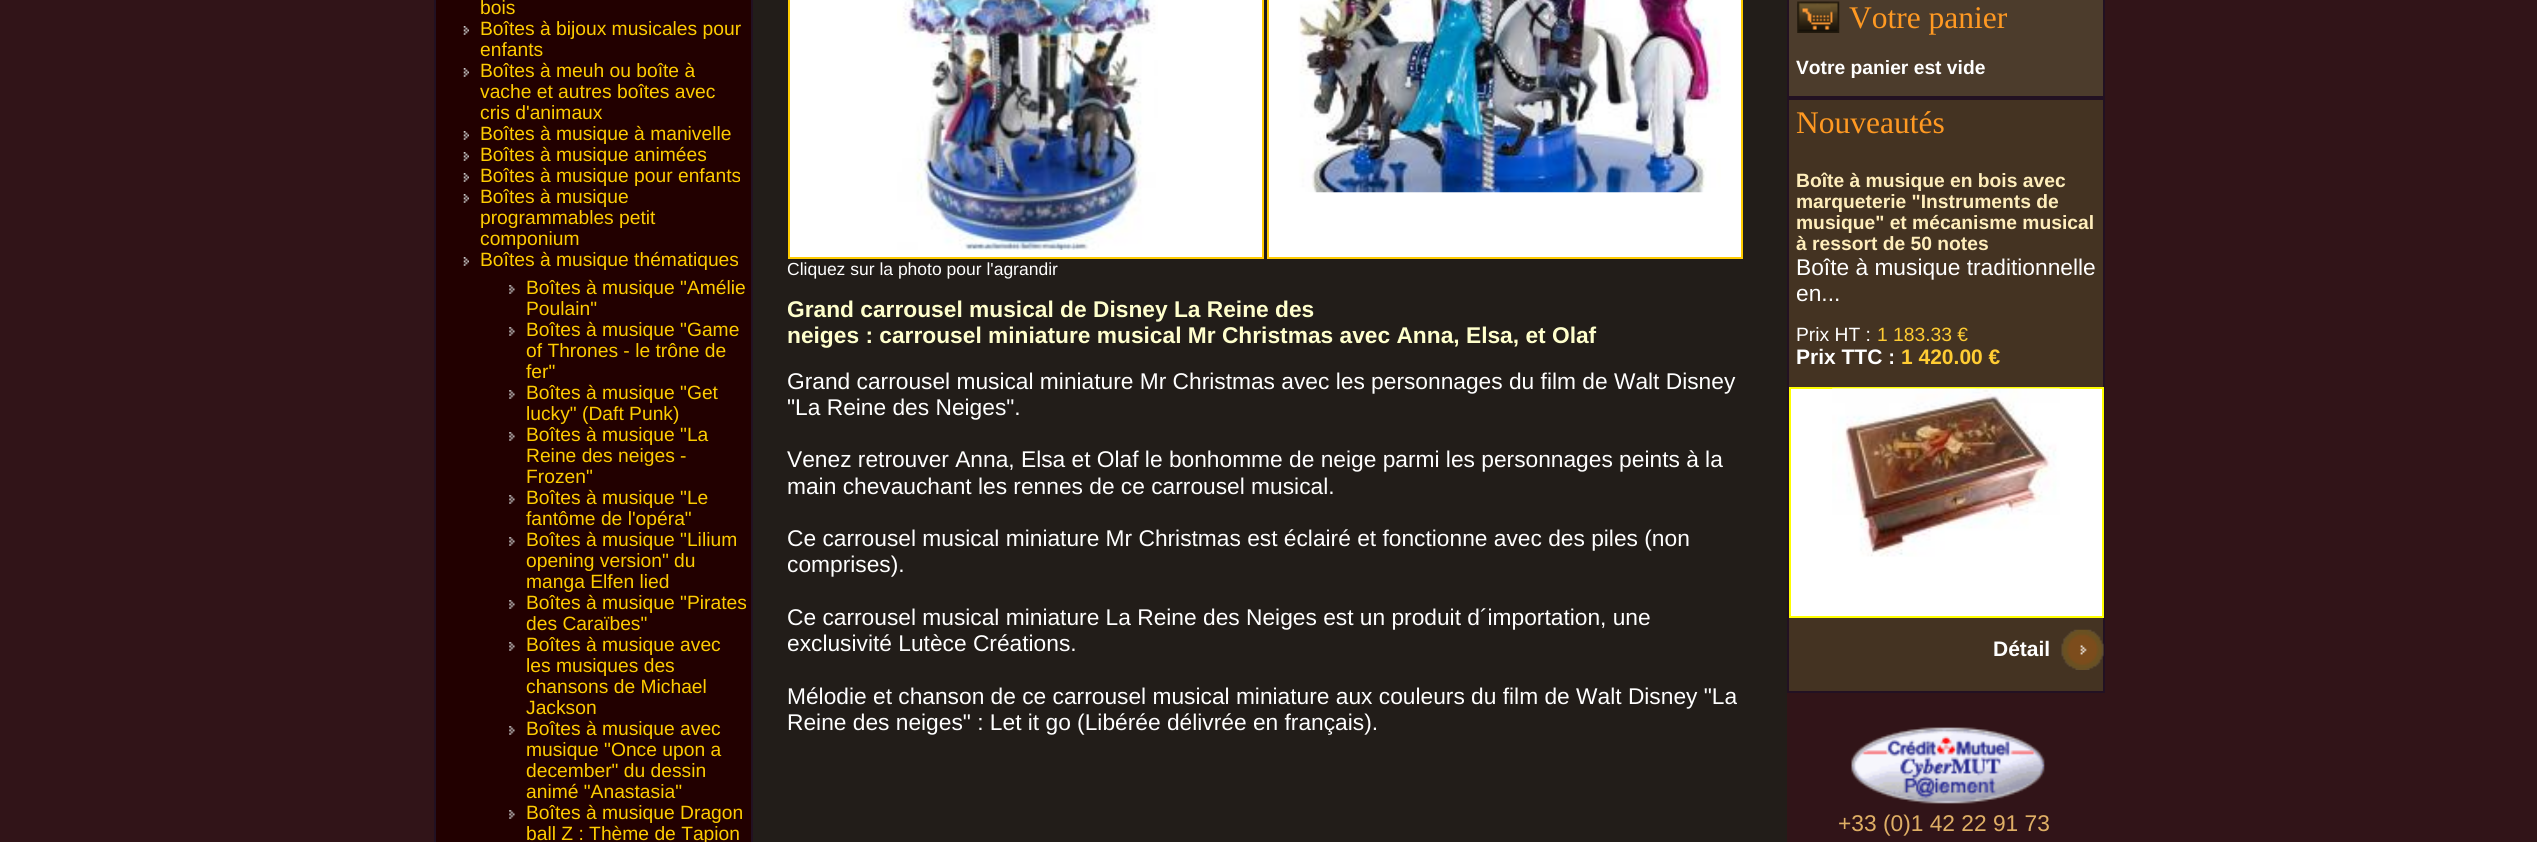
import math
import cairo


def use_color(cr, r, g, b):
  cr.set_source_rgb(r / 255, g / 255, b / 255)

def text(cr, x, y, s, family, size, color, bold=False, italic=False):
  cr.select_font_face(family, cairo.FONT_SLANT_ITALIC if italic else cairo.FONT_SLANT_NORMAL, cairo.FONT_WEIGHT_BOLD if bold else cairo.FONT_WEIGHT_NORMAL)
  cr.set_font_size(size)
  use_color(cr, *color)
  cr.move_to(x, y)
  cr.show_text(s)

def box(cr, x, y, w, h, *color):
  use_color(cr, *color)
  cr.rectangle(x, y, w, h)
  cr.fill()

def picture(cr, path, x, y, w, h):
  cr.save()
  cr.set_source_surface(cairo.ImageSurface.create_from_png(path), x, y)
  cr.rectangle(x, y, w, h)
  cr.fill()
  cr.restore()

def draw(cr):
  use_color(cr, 49, 20, 24)
  cr.paint()
  use_color(cr, 34, 0, 0)
  cr.rectangle(435, -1, 317, 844)
  cr.fill_preserve()
  use_color(cr, 34, 17, 34)
  cr.stroke()
  picture(cr, "img_01.png", 463, 26, 6, 9)
  picture(cr, "img_01.png", 463, 68, 6, 9)
  picture(cr, "img_01.png", 463, 131, 6, 9)
  picture(cr, "img_01.png", 463, 152, 6, 9)
  picture(cr, "img_01.png", 463, 173, 6, 9)
  picture(cr, "img_01.png", 463, 194, 6, 9)
  picture(cr, "img_01.png", 463, 257, 6, 9)
  picture(cr, "img_02.png", 509, 285, 6, 9)
  picture(cr, "img_02.png", 509, 327, 6, 9)
  picture(cr, "img_02.png", 509, 390, 6, 9)
  picture(cr, "img_02.png", 509, 432, 6, 9)
  picture(cr, "img_02.png", 509, 495, 6, 9)
  picture(cr, "img_02.png", 509, 537, 6, 9)
  picture(cr, "img_02.png", 509, 600, 6, 9)
  picture(cr, "img_02.png", 509, 642, 6, 9)
  picture(cr, "img_02.png", 509, 726, 6, 9)
  picture(cr, "img_02.png", 509, 810, 6, 9)
  box(cr, 753, 0, 1034, 842, 34, 29, 25)
  use_color(cr, 255, 255, 255)
  cr.rectangle(789, -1, 474, 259)
  cr.fill_preserve()
  use_color(cr, 255, 204, 0)
  cr.stroke()
  picture(cr, "img_03.png", 897, 0, 261, 250)
  use_color(cr, 255, 255, 255)
  cr.rectangle(1268, -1, 474, 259)
  cr.fill_preserve()
  use_color(cr, 255, 204, 0)
  cr.stroke()
  picture(cr, "img_04.png", 1298, 0, 423, 193)
  use_color(cr, 76, 60, 44)
  cr.rectangle(1788, -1, 316, 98)
  cr.fill_preserve()
  use_color(cr, 34, 17, 34)
  cr.stroke()
  picture(cr, "img_05.png", 1797, 1, 43, 32)
  use_color(cr, 68, 51, 34)
  cr.rectangle(1788, 99, 316, 593)
  cr.fill_preserve()
  use_color(cr, 34, 17, 34)
  cr.stroke()
  use_color(cr, 255, 255, 255)
  cr.rectangle(1790, 388, 313, 229)
  cr.fill_preserve()
  use_color(cr, 255, 255, 0)
  cr.stroke()
  picture(cr, "img_06.png", 1832, 388, 228, 169)
  picture(cr, "img_07.png", 2061, 629, 43, 41)
  picture(cr, "img_08.png", 1851, 727, 194, 77)
  text(cr, 480, 14, "bois", "Liberation Sans", 19.25, (255, 204, 0))
  text(cr, 480, 35, "Boîtes à bijoux musicales pour", "Liberation Sans", 19.25, (255, 204, 0))
  text(cr, 480, 56, "enfants", "Liberation Sans", 19.25, (255, 204, 0))
  text(cr, 480, 77, "Boîtes à meuh ou boîte à", "Liberation Sans", 19.25, (255, 204, 0))
  text(cr, 480, 98, "vache et autres boîtes avec", "Liberation Sans", 19.25, (255, 204, 0))
  text(cr, 480, 119, "cris d'animaux", "Liberation Sans", 19.25, (255, 204, 0))
  text(cr, 480, 140, "Boîtes à musique à manivelle", "Liberation Sans", 19.25, (255, 204, 0))
  text(cr, 480, 161, "Boîtes à musique animées", "Liberation Sans", 19.25, (255, 204, 0))
  text(cr, 480, 182, "Boîtes à musique pour enfants", "Liberation Sans", 19.25, (255, 204, 0))
  text(cr, 480, 203, "Boîtes à musique", "Liberation Sans", 19.25, (255, 204, 0))
  text(cr, 480, 224, "programmables petit", "Liberation Sans", 19.25, (255, 204, 0))
  text(cr, 480, 245, "componium", "Liberation Sans", 19.25, (255, 204, 0))
  text(cr, 480, 266, "Boîtes à musique thématiques", "Liberation Sans", 19.25, (255, 204, 0))
  text(cr, 526, 294, "Boîtes à musique \"Amélie", "Liberation Sans", 19.25, (255, 204, 0))
  text(cr, 526, 315, "Poulain\"", "Liberation Sans", 19.25, (255, 204, 0))
  text(cr, 526, 336, "Boîtes à musique \"Game", "Liberation Sans", 19.25, (255, 204, 0))
  text(cr, 526, 357, "of Thrones - le trône de", "Liberation Sans", 19.25, (255, 204, 0))
  text(cr, 526, 378, "fer\"", "Liberation Sans", 19.25, (255, 204, 0))
  text(cr, 526, 399, "Boîtes à musique \"Get", "Liberation Sans", 19.25, (255, 204, 0))
  text(cr, 526, 420, "lucky\" (Daft Punk)", "Liberation Sans", 19.25, (255, 204, 0))
  text(cr, 526, 441, "Boîtes à musique \"La", "Liberation Sans", 19.25, (255, 204, 0))
  text(cr, 526, 462, "Reine des neiges -", "Liberation Sans", 19.25, (255, 204, 0))
  text(cr, 526, 483, "Frozen\"", "Liberation Sans", 19.25, (255, 204, 0))
  text(cr, 526, 504, "Boîtes à musique \"Le", "Liberation Sans", 19.25, (255, 204, 0))
  text(cr, 526, 525, "fantôme de l'opéra\"", "Liberation Sans", 19.25, (255, 204, 0))
  text(cr, 526, 546, "Boîtes à musique \"Lilium", "Liberation Sans", 19.25, (255, 204, 0))
  text(cr, 526, 567, "opening version\" du", "Liberation Sans", 19.25, (255, 204, 0))
  text(cr, 526, 588, "manga Elfen lied", "Liberation Sans", 19.25, (255, 204, 0))
  text(cr, 526, 609, "Boîtes à musique \"Pirates", "Liberation Sans", 19.25, (255, 204, 0))
  text(cr, 526, 630, "des Caraïbes\"", "Liberation Sans", 19.25, (255, 204, 0))
  text(cr, 526, 651, "Boîtes à musique avec", "Liberation Sans", 19.25, (255, 204, 0))
  text(cr, 526, 672, "les musiques des", "Liberation Sans", 19.25, (255, 204, 0))
  text(cr, 526, 693, "chansons de Michael", "Liberation Sans", 19.25, (255, 204, 0))
  text(cr, 526, 714, "Jackson", "Liberation Sans", 19.25, (255, 204, 0))
  text(cr, 526, 735, "Boîtes à musique avec", "Liberation Sans", 19.25, (255, 204, 0))
  text(cr, 526, 756, "musique \"Once upon a", "Liberation Sans", 19.25, (255, 204, 0))
  text(cr, 526, 777, "december\" du dessin", "Liberation Sans", 19.25, (255, 204, 0))
  text(cr, 526, 798, "animé \"Anastasia\"", "Liberation Sans", 19.25, (255, 204, 0))
  text(cr, 526, 819, "Boîtes à musique Dragon", "Liberation Sans", 19.25, (255, 204, 0))
  text(cr, 526, 840, "ball Z : Thème de Tapion", "Liberation Sans", 19.25, (255, 204, 0))
  text(cr, 787, 275, "Cliquez sur la photo pour l'agrandir", "Liberation Sans", 17.5, (255, 255, 255))
  text(cr, 787, 317, "Grand carrousel musical de Disney La Reine des", "Liberation Sans", 22.75, (255, 255, 204), bold=True)
  text(cr, 787, 343, "neiges : carrousel miniature musical Mr Christmas avec Anna, Elsa, et Olaf", "Liberation Sans", 22.75, (255, 255, 204), bold=True)
  text(cr, 787, 389, "Grand carrousel musical miniature Mr Christmas avec les personnages du film de Walt Disney", "Liberation Sans", 22.75, (255, 255, 255))
  text(cr, 787, 415, "\"La Reine des Neiges\".", "Liberation Sans", 22.75, (255, 255, 255))
  text(cr, 787, 467, "Venez retrouver Anna, Elsa et Olaf le bonhomme de neige parmi les personnages peints à la", "Liberation Sans", 22.75, (255, 255, 255))
  text(cr, 787, 494, "main chevauchant les rennes de ce carrousel musical.", "Liberation Sans", 22.75, (255, 255, 255))
  text(cr, 787, 546, "Ce carrousel musical miniature Mr Christmas est éclairé et fonctionne avec des piles (non", "Liberation Sans", 22.75, (255, 255, 255))
  text(cr, 787, 572, "comprises).", "Liberation Sans", 22.75, (255, 255, 255))
  text(cr, 787, 625, "Ce carrousel musical miniature La Reine des Neiges est un produit d´importation, une", "Liberation Sans", 22.75, (255, 255, 255))
  text(cr, 787, 651, "exclusivité Lutèce Créations.", "Liberation Sans", 22.75, (255, 255, 255))
  text(cr, 787, 704, "Mélodie et chanson de ce carrousel musical miniature aux couleurs du film de Walt Disney \"La", "Liberation Sans", 22.75, (255, 255, 255))
  text(cr, 787, 730, "Reine des neiges\" : Let it go (Libérée délivrée en français).", "Liberation Sans", 22.75, (255, 255, 255))
  text(cr, 1849, 28, "Votre panier", "Liberation Serif", 31.5, (255, 153, 34))
  text(cr, 1796, 74, "Votre panier est vide", "Liberation Sans", 19.25, (255, 255, 255), bold=True)
  text(cr, 1796, 133, "Nouveautés", "Liberation Serif", 31.5, (255, 153, 34))
  text(cr, 1796, 187, "Boîte à musique en bois avec", "Liberation Sans", 19.25, (255, 238, 187), bold=True)
  text(cr, 1796, 208, "marqueterie \"Instruments de", "Liberation Sans", 19.25, (255, 238, 187), bold=True)
  text(cr, 1796, 229, "musique\" et mécanisme musical", "Liberation Sans", 19.25, (255, 238, 187), bold=True)
  text(cr, 1796, 250, "à ressort de 50 notes", "Liberation Sans", 19.25, (255, 238, 187), bold=True)
  text(cr, 1796, 275, "Boîte à musique traditionnelle", "Liberation Sans", 22.75, (255, 255, 255))
  text(cr, 1796, 301, "en...", "Liberation Sans", 22.75, (255, 255, 255))
  text(cr, 1796, 341, "Prix HT :", "Liberation Sans", 19.25, (255, 255, 255))
  text(cr, 1877, 341, "1 183.33 €", "Liberation Sans", 19.25, (255, 204, 51))
  text(cr, 1796, 364, "Prix TTC :", "Liberation Sans", 21, (255, 255, 255), bold=True)
  text(cr, 1901, 364, "1 420.00 €", "Liberation Sans", 21, (255, 204, 51), bold=True)
  text(cr, 1993, 656, "Détail", "Liberation Sans", 21, (255, 255, 255), bold=True)
  text(cr, 1838, 831, "+33 (0)1 42 22 91 73", "Liberation Sans", 22.75, (223, 175, 101))


surface = cairo.ImageSurface(cairo.FORMAT_RGB24, 2537, 842)
cr = cairo.Context(surface)
options = cairo.FontOptions()
options.set_hint_metrics(cairo.HINT_METRICS_OFF)
options.set_hint_style(cairo.HINT_STYLE_NONE)
cr.set_font_options(options)
cr.set_miter_limit(4)
draw(cr)
surface.write_to_png("out.png")
